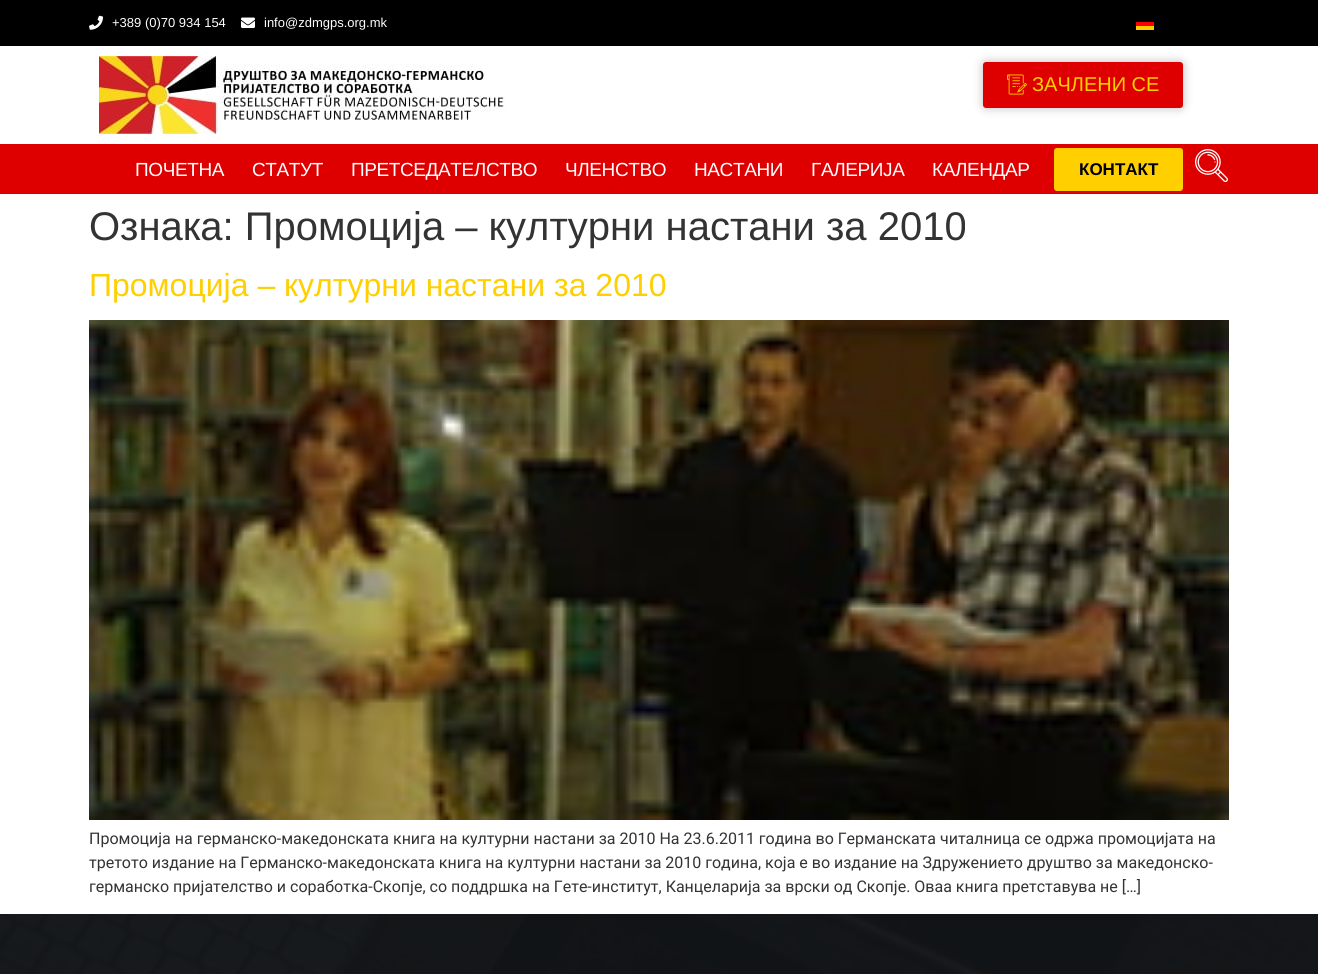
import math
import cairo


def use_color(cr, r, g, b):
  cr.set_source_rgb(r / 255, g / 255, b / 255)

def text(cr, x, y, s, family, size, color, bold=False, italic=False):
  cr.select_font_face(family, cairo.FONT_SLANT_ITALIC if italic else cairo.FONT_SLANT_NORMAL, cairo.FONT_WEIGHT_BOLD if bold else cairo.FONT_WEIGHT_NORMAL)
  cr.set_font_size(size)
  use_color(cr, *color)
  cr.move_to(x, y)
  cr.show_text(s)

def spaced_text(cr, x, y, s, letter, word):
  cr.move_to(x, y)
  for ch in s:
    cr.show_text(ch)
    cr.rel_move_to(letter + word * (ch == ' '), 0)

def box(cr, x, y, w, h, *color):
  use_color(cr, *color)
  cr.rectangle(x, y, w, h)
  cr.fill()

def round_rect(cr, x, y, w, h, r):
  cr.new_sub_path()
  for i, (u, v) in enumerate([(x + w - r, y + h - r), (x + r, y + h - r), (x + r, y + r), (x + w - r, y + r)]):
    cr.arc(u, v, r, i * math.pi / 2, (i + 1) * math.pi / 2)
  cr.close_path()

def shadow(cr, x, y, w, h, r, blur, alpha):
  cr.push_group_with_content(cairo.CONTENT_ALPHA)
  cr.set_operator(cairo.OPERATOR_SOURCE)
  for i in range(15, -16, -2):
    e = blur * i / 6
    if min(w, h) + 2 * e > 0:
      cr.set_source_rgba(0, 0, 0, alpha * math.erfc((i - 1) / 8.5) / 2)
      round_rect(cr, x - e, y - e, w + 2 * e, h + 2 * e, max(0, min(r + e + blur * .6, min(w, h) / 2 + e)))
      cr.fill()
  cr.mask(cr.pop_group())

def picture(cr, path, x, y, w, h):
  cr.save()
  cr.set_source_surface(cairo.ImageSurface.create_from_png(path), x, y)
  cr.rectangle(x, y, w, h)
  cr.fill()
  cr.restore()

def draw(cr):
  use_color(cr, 255, 255, 255)
  cr.paint()
  box(cr, 0, 0, 1318, 46, 0, 0, 0)
  picture(cr, "img_01.png", 89, 15, 14, 15)
  picture(cr, "img_02.png", 241, 17, 14, 11)
  box(cr, 1136, 26, 18, 4, 255, 204, 0)
  box(cr, 1136, 22, 18, 4, 255, 0, 0)
  picture(cr, "img_03.png", 99, 56, 408, 78)
  use_color(cr, 0, 0, 0)
  shadow(cr, 983, 62, 200, 46, 3, 5, 0.25)
  use_color(cr, 222, 0, 0)
  round_rect(cr, 983, 62, 200, 46, 3)
  cr.fill()
  picture(cr, "img_04.png", 1007, 74, 20, 21)
  box(cr, 0, 144, 1318, 50, 222, 0, 0)
  use_color(cr, 255, 207, 0)
  round_rect(cr, 1054.5, 148.5, 128, 42, 2.5)
  cr.fill_preserve()
  cr.set_line_width(1)
  cr.stroke()
  picture(cr, "img_05.png", 1195, 149, 33, 33)
  picture(cr, "img_06.png", 89, 320, 1140, 500)
  picture(cr, "img_07.png", 0, 914, 1318, 60)
  text(cr, 112, 27, "+389 (0)70 934 154", "Liberation Sans", 13, (255, 255, 255))
  text(cr, 264, 27, "info@zdmgps.org.mk", "Liberation Sans", 13, (255, 255, 255))
  text(cr, 1032, 91, "ЗАЧЛЕНИ СЕ", "Liberation Sans", 20, (255, 207, 0))
  cr.set_font_size(19)
  use_color(cr, 255, 255, 255)
  spaced_text(cr, 135, 176, "ПОЧЕТНА", -0.4, 0)
  spaced_text(cr, 252, 176, "СТАТУТ", -0.4, 0)
  spaced_text(cr, 351, 176, "ПРЕТСЕДАТЕЛСТВО", -0.4, 0)
  spaced_text(cr, 565, 176, "ЧЛЕНСТВО", -0.4, 0)
  spaced_text(cr, 694, 176, "НАСТАНИ", -0.4, 0)
  spaced_text(cr, 811, 176, "ГАЛЕРИЈА", -0.4, 0)
  spaced_text(cr, 932, 176, "КАЛЕНДАР", -0.4, 0)
  text(cr, 1079, 175, "КОНТАКТ", "Liberation Sans", 17, (0, 0, 0), bold=True)
  text(cr, 89, 240, "Ознака: Промоција – културни настани за 2010", "Liberation Sans", 40, (51, 51, 51))
  text(cr, 89, 296, "Промоција – културни настани за 2010", "Liberation Sans", 32, (255, 207, 0))
  text(cr, 89, 844, "Промоција на германско-македонската книга на културни настани за 2010 На 23.6.2011 година во Германската читалница се одржа промоцијата на", "Roboto", 16, (51, 51, 51))
  text(cr, 89, 868, "третото издание на Германско-македонската книга на културни настани за 2010 година, која е во издание на Здружението друштво за македонско-", "Roboto", 16, (51, 51, 51))
  text(cr, 89, 892, "германско пријателство и соработка-Скопје, со поддршка на Гете-институт, Канцеларија за врски од Скопје. Оваа книга претставува не […]", "Roboto", 16, (51, 51, 51))


surface = cairo.ImageSurface(cairo.FORMAT_RGB24, 1318, 974)
cr = cairo.Context(surface)
options = cairo.FontOptions()
options.set_hint_metrics(cairo.HINT_METRICS_OFF)
options.set_hint_style(cairo.HINT_STYLE_NONE)
cr.set_font_options(options)
cr.set_miter_limit(4)
draw(cr)
surface.write_to_png("out.png")
